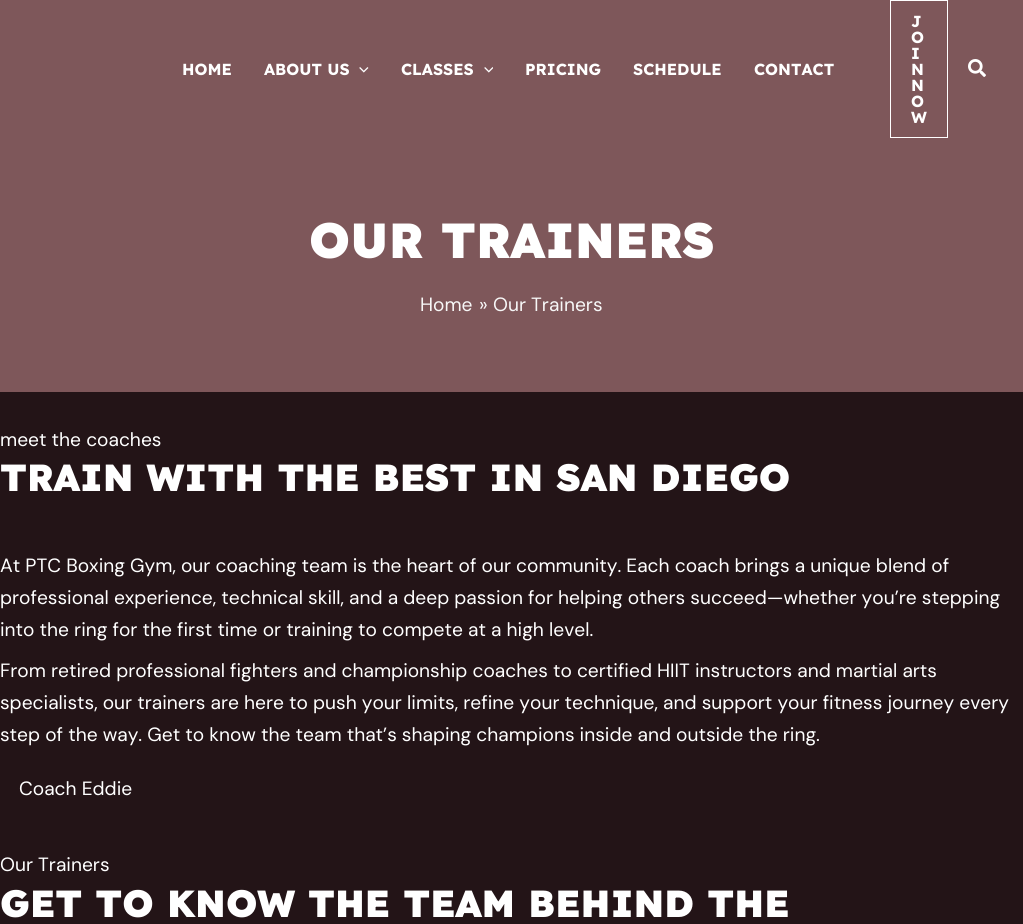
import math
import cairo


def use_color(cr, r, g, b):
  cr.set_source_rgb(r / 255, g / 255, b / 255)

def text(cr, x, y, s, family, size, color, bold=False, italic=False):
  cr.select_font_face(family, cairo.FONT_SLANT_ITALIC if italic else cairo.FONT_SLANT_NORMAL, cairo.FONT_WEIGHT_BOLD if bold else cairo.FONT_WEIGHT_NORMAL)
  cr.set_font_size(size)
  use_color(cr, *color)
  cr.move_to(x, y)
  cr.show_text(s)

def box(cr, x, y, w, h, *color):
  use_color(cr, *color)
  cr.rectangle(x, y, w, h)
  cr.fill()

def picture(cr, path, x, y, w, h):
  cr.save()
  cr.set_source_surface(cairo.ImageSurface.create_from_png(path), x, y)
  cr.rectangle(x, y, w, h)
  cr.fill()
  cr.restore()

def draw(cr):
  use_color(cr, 35, 20, 23)
  cr.paint()
  box(cr, 0, 0, 1023, 392, 126, 87, 90)
  picture(cr, "img_01.png", 359, 67, 10, 6)
  picture(cr, "img_02.png", 484, 67, 9, 6)
  cr.rectangle(890.5, 0.5, 57, 137)
  use_color(cr, 255, 255, 255)
  cr.set_line_width(1)
  cr.stroke()
  picture(cr, "img_03.png", 968, 59, 18, 18)
  text(cr, 182, 75, "HOME", "Lexend", 16, (255, 255, 255), bold=True)
  text(cr, 264, 75, "ABOUT US", "Lexend", 16, (255, 255, 255), bold=True)
  text(cr, 401, 75, "CLASSES", "Lexend", 16, (255, 255, 255), bold=True)
  text(cr, 525, 75, "PRICING", "Lexend", 16, (255, 255, 255), bold=True)
  text(cr, 633, 75, "SCHEDULE", "Lexend", 16, (255, 255, 255), bold=True)
  text(cr, 754, 75, "CONTACT", "Lexend", 16, (255, 255, 255), bold=True)
  text(cr, 911, 27, "J", "Lexend", 16, (255, 255, 255), bold=True)
  text(cr, 911, 43, "O", "Lexend", 16, (255, 255, 255), bold=True)
  text(cr, 911, 59, "I", "Lexend", 16, (255, 255, 255), bold=True)
  text(cr, 911, 75, "N", "Lexend", 16, (255, 255, 255), bold=True)
  text(cr, 911, 91, "N", "Lexend", 16, (255, 255, 255), bold=True)
  text(cr, 911, 107, "O", "Lexend", 16, (255, 255, 255), bold=True)
  text(cr, 911, 123, "W", "Lexend", 16, (255, 255, 255), bold=True)
  text(cr, 309, 258, "OUR TRAINERS", "Lexend Black", 49.25, (255, 255, 255))
  text(cr, 420, 311, "Home", "DM Sans", 19.2, (247, 247, 247))
  text(cr, 479, 311, "»", "DM Sans", 19.2, (247, 247, 247))
  text(cr, 493, 311, "Our Trainers", "DM Sans", 19.2, (247, 247, 247))
  text(cr, 0, 446, "meet the coaches", "DM Sans", 19.2, (255, 255, 255))
  text(cr, 0, 491, "TRAIN WITH THE BEST IN SAN DIEGO", "Lexend Black", 37.75, (255, 255, 255))
  text(cr, 0, 572, "At PTC Boxing Gym, our coaching team is the heart of our community. Each coach brings a unique blend of", "DM Sans", 19.2, (255, 255, 255))
  text(cr, 0, 604, "professional experience, technical skill, and a deep passion for helping others succeed—whether you’re stepping", "DM Sans", 19.2, (255, 255, 255))
  text(cr, 0, 636, "into the ring for the first time or training to compete at a high level.", "DM Sans", 19.2, (255, 255, 255))
  text(cr, 0, 677, "From retired professional fighters and championship coaches to certified HIIT instructors and martial arts", "DM Sans", 19.2, (255, 255, 255))
  text(cr, 0, 709, "specialists, our trainers are here to push your limits, refine your technique, and support your fitness journey every", "DM Sans", 19.2, (255, 255, 255))
  text(cr, 0, 741, "step of the way. Get to know the team that’s shaping champions inside and outside the ring.", "DM Sans", 19.2, (255, 255, 255))
  text(cr, 19, 795, "Coach Eddie", "DM Sans", 19.2, (255, 255, 255))
  text(cr, 0, 871, "Our Trainers", "DM Sans", 19.2, (255, 255, 255))
  text(cr, 0, 917, "GET TO KNOW THE TEAM BEHIND THE", "Lexend Black", 37.75, (255, 255, 255))


surface = cairo.ImageSurface(cairo.FORMAT_RGB24, 1023, 924)
cr = cairo.Context(surface)
options = cairo.FontOptions()
options.set_hint_metrics(cairo.HINT_METRICS_OFF)
options.set_hint_style(cairo.HINT_STYLE_NONE)
cr.set_font_options(options)
cr.set_miter_limit(4)
draw(cr)
surface.write_to_png("out.png")
